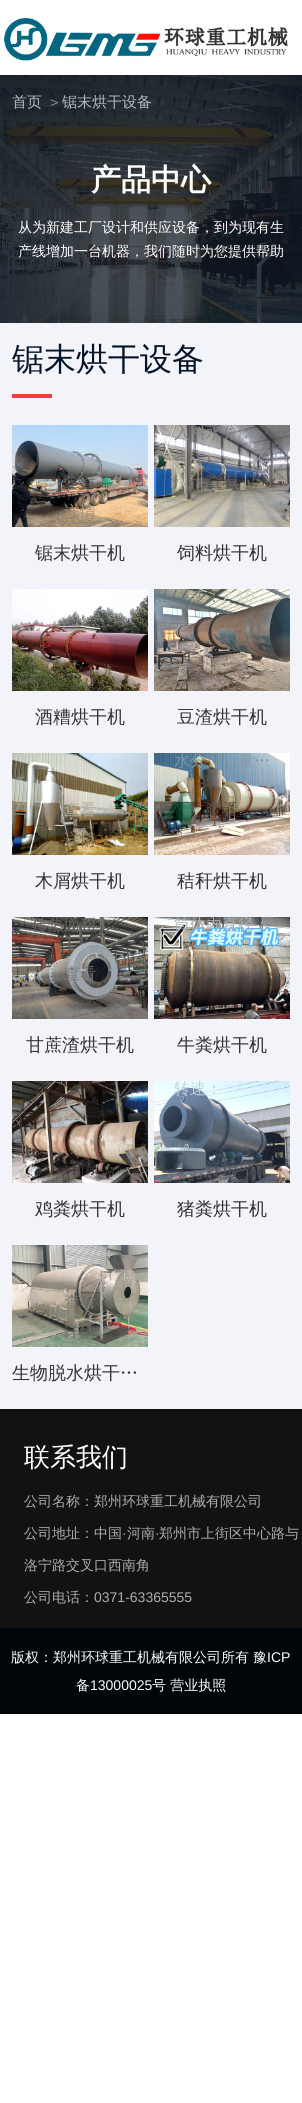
import math
import cairo


def use_color(cr, r, g, b):
  cr.set_source_rgb(r / 255, g / 255, b / 255)

def text(cr, x, y, s, family, size, color, bold=False, italic=False):
  cr.select_font_face(family, cairo.FONT_SLANT_ITALIC if italic else cairo.FONT_SLANT_NORMAL, cairo.FONT_WEIGHT_BOLD if bold else cairo.FONT_WEIGHT_NORMAL)
  cr.set_font_size(size)
  use_color(cr, *color)
  cr.move_to(x, y)
  cr.show_text(s)

def box(cr, x, y, w, h, *color):
  use_color(cr, *color)
  cr.rectangle(x, y, w, h)
  cr.fill()

def picture(cr, path, x, y, w, h):
  cr.save()
  cr.set_source_surface(cairo.ImageSurface.create_from_png(path), x, y)
  cr.rectangle(x, y, w, h)
  cr.fill()
  cr.restore()

def draw(cr):
  use_color(cr, 255, 255, 255)
  cr.paint()
  picture(cr, "img_01.png", 4, 18, 284, 43)
  picture(cr, "img_02.png", 0, 75, 302, 248)
  box(cr, 0, 323, 302, 1086, 242, 244, 250)
  box(cr, 12, 394, 40, 4, 243, 60, 60)
  picture(cr, "img_03.png", 12, 425, 136, 102)
  picture(cr, "img_04.png", 154, 425, 136, 102)
  picture(cr, "img_05.png", 12, 589, 136, 102)
  picture(cr, "img_06.png", 154, 589, 136, 102)
  picture(cr, "img_07.png", 12, 753, 136, 102)
  picture(cr, "img_08.png", 154, 753, 136, 102)
  picture(cr, "img_09.png", 12, 917, 136, 102)
  picture(cr, "img_10.png", 154, 917, 136, 102)
  picture(cr, "img_11.png", 12, 1081, 136, 102)
  picture(cr, "img_12.png", 154, 1081, 136, 102)
  picture(cr, "img_13.png", 12, 1245, 136, 102)
  box(cr, 0, 1409, 302, 219, 18, 18, 18)
  box(cr, 0, 1628, 302, 86, 0, 5, 10)
  text(cr, 12, 107, "首页", "WenQuanYi Zen Hei Medium", 15, (180, 183, 191))
  text(cr, 47, 107, "＞", "WenQuanYi Zen Hei Medium", 15, (153, 153, 153))
  text(cr, 62, 107, "锯末烘干设备", "WenQuanYi Zen Hei Medium", 15, (180, 183, 191))
  text(cr, 91, 190, "产品中心", "WenQuanYi Zen Hei", 30, (255, 255, 255), bold=True)
  text(cr, 18, 232, "从为新建工厂设计和供应设备，到为现有生", "WenQuanYi Zen Hei Medium", 14, (255, 255, 255))
  text(cr, 18, 256, "产线增加一台机器，我们随时为您提供帮助", "WenQuanYi Zen Hei Medium", 14, (255, 255, 255))
  text(cr, 12, 370, "锯末烘干设备", "WenQuanYi Zen Hei Medium", 32, (3, 21, 39))
  text(cr, 64, 487, "查看", "WenQuanYi Zen Hei Medium", 16, (93, 89, 85))
  text(cr, 64, 517, "详情", "WenQuanYi Zen Hei Medium", 16, (165, 141, 110))
  text(cr, 35, 559, "锯末烘干机", "WenQuanYi Zen Hei Medium", 18, (51, 51, 51))
  cr.save()
  cr.rectangle(174, 425, 96, 21)
  cr.clip()
  text(cr, 174, 438, "入料水分：", "WenQuanYi Zen Hei Medium", 16, (132, 131, 132))
  cr.restore()
  text(cr, 206, 487, "查看", "WenQuanYi Zen Hei Medium", 16, (85, 88, 96))
  text(cr, 177, 559, "饲料烘干机", "WenQuanYi Zen Hei Medium", 18, (51, 51, 51))
  text(cr, 35, 723, "酒糟烘干机", "WenQuanYi Zen Hei Medium", 18, (51, 51, 51))
  text(cr, 190, 602, "速：", "WenQuanYi Zen Hei Medium", 16, (141, 144, 132))
  text(cr, 222, 602, "2-10…", "Liberation Sans", 16, (216, 217, 204))
  text(cr, 177, 723, "豆渣烘干机", "WenQuanYi Zen Hei Medium", 18, (51, 51, 51))
  text(cr, 64, 815, "查看", "WenQuanYi Zen Hei Medium", 16, (177, 172, 155))
  text(cr, 64, 845, "详情", "WenQuanYi Zen Hei Medium", 16, (126, 111, 80))
  text(cr, 35, 887, "木屑烘干机", "WenQuanYi Zen Hei Medium", 18, (51, 51, 51))
  text(cr, 174, 766, "水分", "WenQuanYi Zen Hei Medium", 16, (125, 151, 165))
  text(cr, 238, 766, "量…", "WenQuanYi Zen Hei Medium", 16, (125, 151, 165))
  text(cr, 206, 815, "查看", "WenQuanYi Zen Hei Medium", 16, (98, 81, 64))
  text(cr, 177, 887, "秸秆烘干机", "WenQuanYi Zen Hei Medium", 18, (51, 51, 51))
  text(cr, 32, 930, "传热面积 ：", "WenQuanYi Zen Hei Medium", 16, (98, 97, 93))
  text(cr, 64, 979, "查看", "WenQuanYi Zen Hei Medium", 16, (120, 121, 124))
  text(cr, 26, 1051, "甘蔗渣烘干机", "WenQuanYi Zen Hei Medium", 18, (51, 51, 51))
  text(cr, 174, 930, "筒体内直径：", "WenQuanYi Zen Hei Medium", 16, (164, 174, 180))
  text(cr, 177, 1051, "牛粪烘干机", "WenQuanYi Zen Hei Medium", 18, (51, 51, 51))
  text(cr, 96, 1094, "：", "WenQuanYi Zen Hei Medium", 16, (58, 50, 43))
  text(cr, 64, 1173, "详情", "WenQuanYi Zen Hei Medium", 16, (51, 51, 51))
  text(cr, 35, 1215, "鸡粪烘干机", "WenQuanYi Zen Hei Medium", 18, (51, 51, 51))
  text(cr, 174, 1094, "转速：", "WenQuanYi Zen Hei Medium", 16, (189, 210, 222))
  text(cr, 206, 1173, "详情", "WenQuanYi Zen Hei Medium", 16, (77, 84, 95))
  text(cr, 177, 1215, "猪粪烘干机", "WenQuanYi Zen Hei Medium", 18, (51, 51, 51))
  text(cr, 101, 1258, "：", "WenQuanYi Zen Hei Medium", 16, (180, 181, 179))
  text(cr, 64, 1307, "查看", "WenQuanYi Zen Hei Medium", 16, (127, 122, 111))
  text(cr, 64, 1337, "详情", "WenQuanYi Zen Hei Medium", 16, (104, 107, 98))
  text(cr, 12, 1379, "生物脱水烘干…", "WenQuanYi Zen Hei Medium", 18, (51, 51, 51))
  text(cr, 24, 1466, "联系我们", "WenQuanYi Zen Hei Medium", 26, (255, 255, 255))
  text(cr, 24, 1506, "公司名称：郑州环球重工机械有限公司", "WenQuanYi Zen Hei Medium", 14, (173, 173, 173))
  text(cr, 24, 1538, "公司地址：中国", "WenQuanYi Zen Hei Medium", 14, (173, 173, 173))
  text(cr, 122, 1538, "·", "Liberation Sans", 14, (173, 173, 173))
  text(cr, 127, 1538, "河南", "WenQuanYi Zen Hei Medium", 14, (173, 173, 173))
  text(cr, 155, 1538, "·", "Liberation Sans", 14, (173, 173, 173))
  text(cr, 159, 1538, "郑州市上街区中心路与", "WenQuanYi Zen Hei Medium", 14, (173, 173, 173))
  text(cr, 24, 1570, "洛宁路交叉口西南角", "WenQuanYi Zen Hei Medium", 14, (173, 173, 173))
  text(cr, 24, 1602, "公司电话：", "WenQuanYi Zen Hei Medium", 14, (173, 173, 173))
  text(cr, 94, 1602, "0371-63365555", "Liberation Sans", 14, (173, 173, 173))
  text(cr, 11, 1662, "版权：郑州环球重工机械有限公司所有", "WenQuanYi Zen Hei Medium", 14, (255, 255, 255))
  text(cr, 253, 1662, "豫", "WenQuanYi Zen Hei Medium", 14, (255, 255, 255))
  text(cr, 267, 1662, "ICP", "Liberation Sans", 14, (255, 255, 255))
  text(cr, 76, 1690, "备", "WenQuanYi Zen Hei Medium", 14, (255, 255, 255))
  text(cr, 90, 1690, "13000025", "Liberation Sans", 14, (255, 255, 255))
  text(cr, 152, 1690, "号 营业执照", "WenQuanYi Zen Hei Medium", 14, (255, 255, 255))


surface = cairo.ImageSurface(cairo.FORMAT_RGB24, 302, 2103)
cr = cairo.Context(surface)
options = cairo.FontOptions()
options.set_hint_metrics(cairo.HINT_METRICS_OFF)
options.set_hint_style(cairo.HINT_STYLE_NONE)
cr.set_font_options(options)
cr.set_miter_limit(4)
draw(cr)
surface.write_to_png("out.png")
